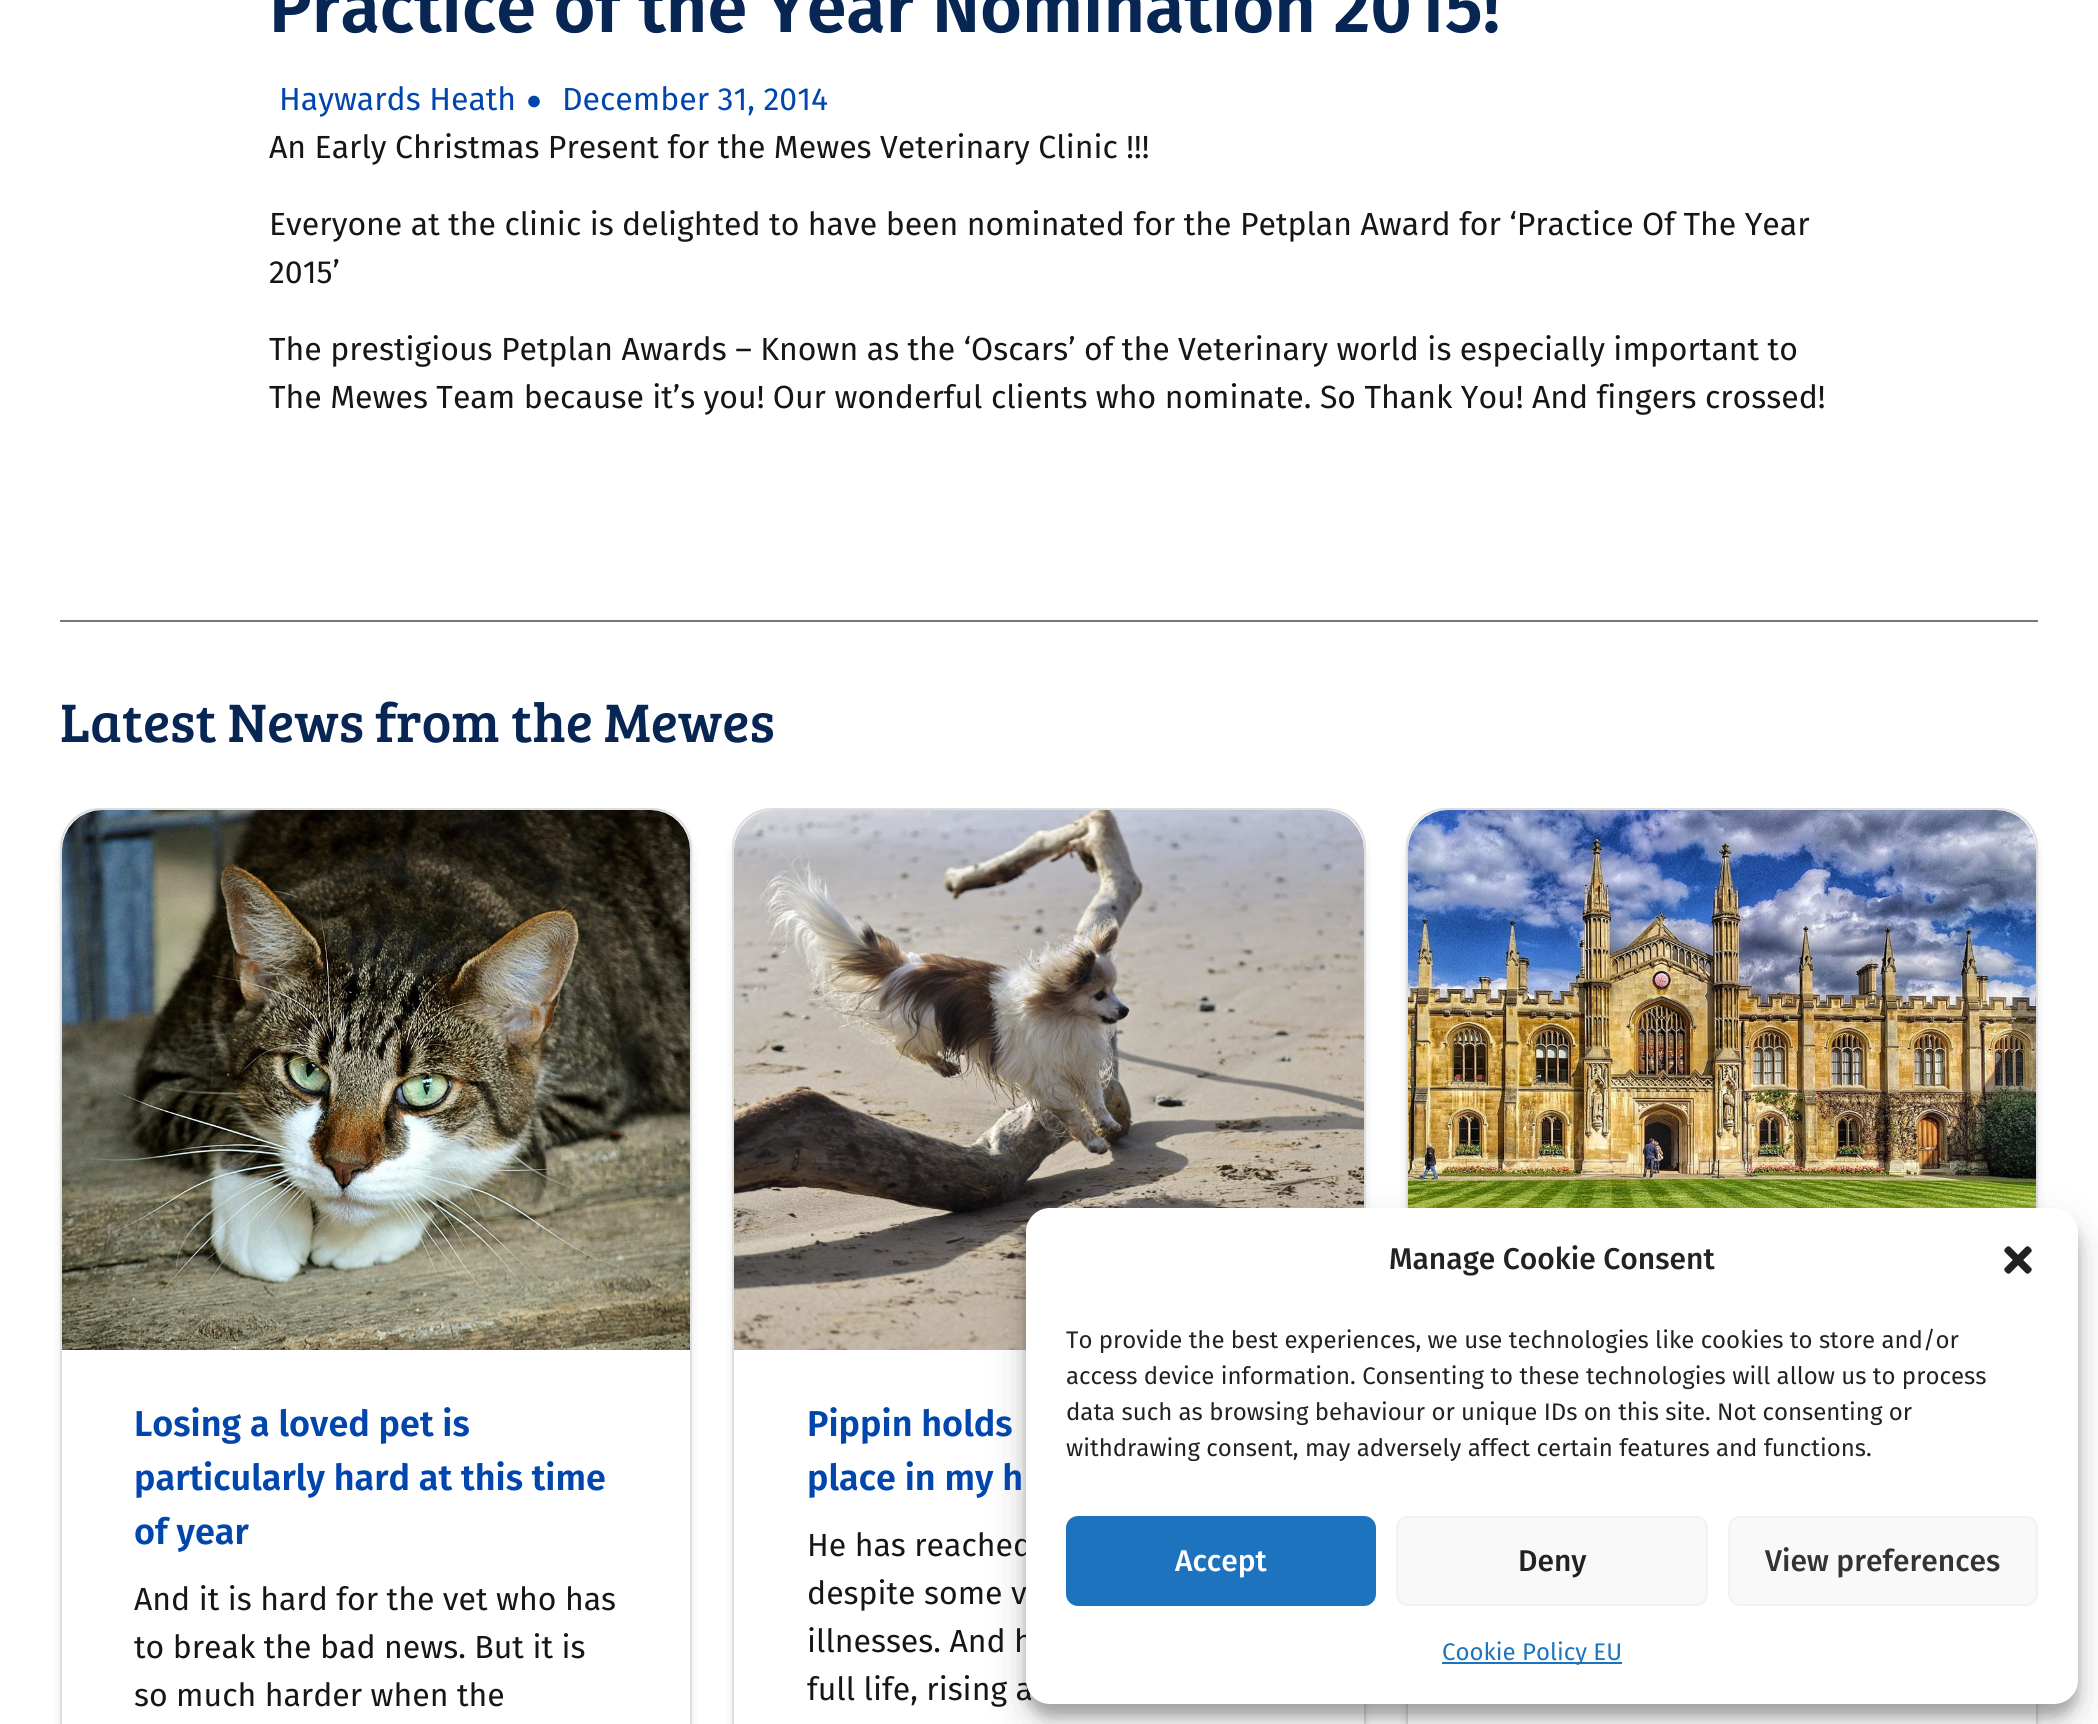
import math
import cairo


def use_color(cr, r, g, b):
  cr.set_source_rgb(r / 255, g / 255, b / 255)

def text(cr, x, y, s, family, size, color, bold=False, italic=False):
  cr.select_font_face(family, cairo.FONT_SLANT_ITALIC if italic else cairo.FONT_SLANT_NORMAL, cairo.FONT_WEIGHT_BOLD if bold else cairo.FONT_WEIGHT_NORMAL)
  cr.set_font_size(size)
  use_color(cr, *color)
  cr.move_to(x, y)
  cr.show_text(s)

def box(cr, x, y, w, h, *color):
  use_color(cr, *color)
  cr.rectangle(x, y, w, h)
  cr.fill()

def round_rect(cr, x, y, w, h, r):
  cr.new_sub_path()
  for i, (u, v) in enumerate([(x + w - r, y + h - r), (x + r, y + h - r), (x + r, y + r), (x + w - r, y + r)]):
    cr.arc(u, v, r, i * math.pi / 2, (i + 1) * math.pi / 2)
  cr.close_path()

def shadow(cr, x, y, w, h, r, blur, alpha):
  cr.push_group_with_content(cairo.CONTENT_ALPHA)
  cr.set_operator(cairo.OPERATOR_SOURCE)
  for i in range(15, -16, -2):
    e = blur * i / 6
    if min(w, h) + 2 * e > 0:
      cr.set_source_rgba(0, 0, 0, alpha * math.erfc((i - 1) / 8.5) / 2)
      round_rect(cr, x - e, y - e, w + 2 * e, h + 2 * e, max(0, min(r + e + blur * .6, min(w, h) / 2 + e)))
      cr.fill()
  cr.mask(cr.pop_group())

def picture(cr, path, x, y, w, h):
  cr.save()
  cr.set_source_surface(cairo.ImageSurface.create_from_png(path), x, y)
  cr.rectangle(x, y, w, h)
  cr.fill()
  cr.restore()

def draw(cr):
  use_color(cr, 255, 255, 255)
  cr.paint()
  picture(cr, "img_01.png", 528, 95, 12, 13)
  box(cr, 60, 620, 1978, 2, 119, 119, 119)
  use_color(cr, 0, 0, 0)
  shadow(cr, 60, 816, 632, 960, 40, 4, 0.1)
  use_color(cr, 255, 255, 255)
  round_rect(cr, 61, 809, 630, 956, 39)
  cr.fill_preserve()
  use_color(cr, 221, 221, 221)
  cr.stroke()
  picture(cr, "img_02.png", 62, 810, 628, 540)
  use_color(cr, 0, 0, 0)
  shadow(cr, 732, 816, 634, 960, 40, 4, 0.1)
  use_color(cr, 255, 255, 255)
  round_rect(cr, 733, 809, 632, 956, 39)
  cr.fill_preserve()
  use_color(cr, 221, 221, 221)
  cr.stroke()
  picture(cr, "img_03.png", 734, 810, 630, 540)
  use_color(cr, 0, 0, 0)
  shadow(cr, 1406, 816, 632, 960, 40, 4, 0.1)
  use_color(cr, 255, 255, 255)
  round_rect(cr, 1407, 809, 630, 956, 39)
  cr.fill_preserve()
  use_color(cr, 221, 221, 221)
  cr.stroke()
  picture(cr, "img_04.png", 1408, 810, 628, 398)
  use_color(cr, 0, 0, 0)
  shadow(cr, 1026, 1220, 1052, 496, 24, 6, 0.23)
  shadow(cr, 1026, 1228, 1052, 496, 24, 20, 0.19)
  text(cr, 269, 32, "Practice of the Year Nomination 2015!", "Fira Sans SemiBold", 72, (7, 38, 84))
  text(cr, 279, 110, "Haywards Heath", "Fira Sans", 32, (1, 70, 173))
  text(cr, 562, 110, "December 31, 2014", "Fira Sans", 32, (1, 70, 173))
  text(cr, 269, 158, "An Early Christmas Present for the Mewes Veterinary Clinic !!!", "Fira Sans", 32, (24, 21, 21))
  text(cr, 269, 235, "Everyone at the clinic is delighted to have been nominated for the Petplan Award for ‘Practice Of The Year", "Fira Sans", 32, (24, 21, 21))
  text(cr, 269, 283, "2015’", "Fira Sans", 32, (24, 21, 21))
  text(cr, 269, 360, "The prestigious Petplan Awards – Known as the ‘Oscars’ of the Veterinary world is especially important to", "Fira Sans", 32, (24, 21, 21))
  text(cr, 269, 408, "The Mewes Team because it’s you! Our wonderful clients who nominate. So Thank You! And fingers crossed!", "Fira Sans", 32, (24, 21, 21))
  text(cr, 60, 742, "Latest News from the Mewes", "Bree Serif", 56, (7, 38, 84))
  text(cr, 134, 1436, "Losing a loved pet is", "Fira Sans SemiBold", 36, (1, 70, 173))
  text(cr, 134, 1490, "particularly hard at this time", "Fira Sans SemiBold", 36, (1, 70, 173))
  text(cr, 134, 1544, "of year", "Fira Sans SemiBold", 36, (1, 70, 173))
  text(cr, 134, 1610, "And it is hard for the vet who has", "Fira Sans", 32, (24, 21, 21))
  text(cr, 134, 1658, "to break the bad news. But it is", "Fira Sans", 32, (24, 21, 21))
  text(cr, 134, 1706, "so much harder when the", "Fira Sans", 32, (24, 21, 21))
  text(cr, 807, 1436, "Pippin holds", "Fira Sans SemiBold", 36, (1, 70, 173))
  text(cr, 807, 1490, "place in my h", "Fira Sans SemiBold", 36, (1, 70, 173))
  text(cr, 807, 1556, "He has reached", "Fira Sans", 32, (24, 21, 21))
  text(cr, 807, 1604, "despite some v", "Fira Sans", 32, (24, 21, 21))
  text(cr, 807, 1652, "illnesses. And h", "Fira Sans", 32, (24, 21, 21))
  text(cr, 807, 1700, "full life, rising a", "Fira Sans", 32, (24, 21, 21))
  use_color(cr, 255, 255, 255)
  round_rect(cr, 1026, 1208, 1052, 496, 24)
  cr.fill()
  text(cr, 1389, 1269, "Manage Cookie Consent", "Fira Sans Medium", 30, (34, 34, 34))
  picture(cr, "img_05.png", 2004, 1246, 28, 28)
  text(cr, 1066, 1348, "To provide the best experiences, we use technologies like cookies to store and/or", "Fira Sans", 24, (34, 34, 34))
  text(cr, 1066, 1384, "access device information. Consenting to these technologies will allow us to process", "Fira Sans", 24, (34, 34, 34))
  text(cr, 1066, 1420, "data such as browsing behaviour or unique IDs on this site. Not consenting or", "Fira Sans", 24, (34, 34, 34))
  text(cr, 1066, 1456, "withdrawing consent, may adversely affect certain features and functions.", "Fira Sans", 24, (34, 34, 34))
  use_color(cr, 30, 115, 190)
  round_rect(cr, 1067, 1517, 308, 88, 11)
  cr.fill_preserve()
  cr.stroke()
  text(cr, 1175, 1571, "Accept", "Fira Sans Medium", 30, (255, 255, 255))
  use_color(cr, 249, 249, 249)
  round_rect(cr, 1397, 1517, 310, 88, 11)
  cr.fill_preserve()
  use_color(cr, 242, 242, 242)
  cr.stroke()
  text(cr, 1518, 1571, "Deny", "Fira Sans Medium", 30, (34, 34, 34))
  use_color(cr, 249, 249, 249)
  round_rect(cr, 1729, 1517, 308, 88, 11)
  cr.fill_preserve()
  use_color(cr, 242, 242, 242)
  cr.stroke()
  text(cr, 1765, 1571, "View preferences", "Fira Sans Medium", 30, (51, 51, 51))
  box(cr, 1442, 1662, 180, 2, 30, 115, 190)
  text(cr, 1442, 1660, "Cookie Policy EU", "Fira Sans", 24, (30, 115, 190))


surface = cairo.ImageSurface(cairo.FORMAT_RGB24, 2098, 1724)
cr = cairo.Context(surface)
options = cairo.FontOptions()
options.set_hint_metrics(cairo.HINT_METRICS_OFF)
options.set_hint_style(cairo.HINT_STYLE_NONE)
cr.set_font_options(options)
cr.set_miter_limit(4)
draw(cr)
surface.write_to_png("out.png")
